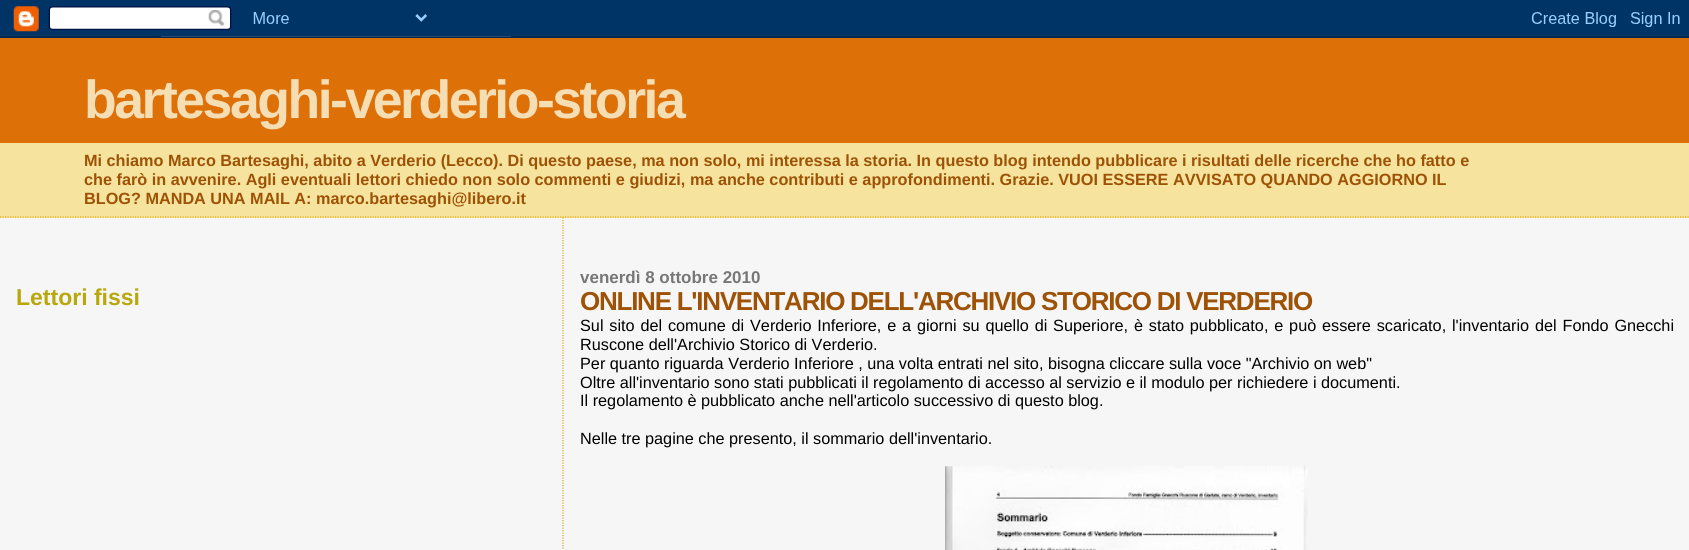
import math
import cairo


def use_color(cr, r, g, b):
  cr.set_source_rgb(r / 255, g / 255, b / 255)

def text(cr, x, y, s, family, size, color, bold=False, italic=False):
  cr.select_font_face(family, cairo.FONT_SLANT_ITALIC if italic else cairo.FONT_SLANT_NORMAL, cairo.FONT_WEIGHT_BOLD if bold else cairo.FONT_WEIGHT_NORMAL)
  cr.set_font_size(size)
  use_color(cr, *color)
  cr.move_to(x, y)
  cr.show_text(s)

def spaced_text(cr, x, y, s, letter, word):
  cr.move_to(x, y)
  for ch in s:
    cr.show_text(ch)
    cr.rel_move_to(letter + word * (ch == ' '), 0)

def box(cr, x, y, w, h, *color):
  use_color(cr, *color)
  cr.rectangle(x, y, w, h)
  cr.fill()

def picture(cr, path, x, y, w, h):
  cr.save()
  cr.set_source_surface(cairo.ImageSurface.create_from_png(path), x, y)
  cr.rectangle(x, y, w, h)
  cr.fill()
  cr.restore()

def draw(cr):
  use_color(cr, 246, 246, 246)
  cr.paint()
  picture(cr, "img_01.png", 0, 0, 1689, 38)
  box(cr, 0, 143, 1689, 75, 245, 227, 158)
  cr.new_path()
  cr.move_to(0, 217)
  cr.line_to(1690, 217)
  use_color(cr, 224, 173, 18)
  cr.set_line_width(1.2)
  cr.set_dash([1.25, 1.25])
  cr.stroke()
  box(cr, 0, 38, 1689, 105, 222, 112, 8)
  cr.new_path()
  cr.move_to(563, 217.5)
  cr.line_to(563, 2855)
  use_color(cr, 224, 173, 18)
  cr.stroke()
  picture(cr, "img_02.png", 945, 466, 363, 84)
  cr.select_font_face("Liberation Sans", cairo.FONT_SLANT_NORMAL, cairo.FONT_WEIGHT_BOLD)
  cr.set_font_size(53.6)
  use_color(cr, 245, 222, 179)
  spaced_text(cr, 84, 118, "bartesaghi-verderio-storia", -2.5, 0)
  text(cr, 84, 166, "Mi chiamo Marco Bartesaghi, abito a Verderio (Lecco). Di questo paese, ma non solo, mi interessa la storia. In questo blog intendo pubblicare i risultati delle ricerche che ho fatto e", "Liberation Sans", 16.25, (158, 82, 5), bold=True)
  text(cr, 84, 185, "che farò in avvenire. Agli eventuali lettori chiedo non solo commenti e giudizi, ma anche contributi e approfondimenti. Grazie. VUOI ESSERE AVVISATO QUANDO AGGIORNO IL", "Liberation Sans", 16.25, (158, 82, 5), bold=True)
  text(cr, 84, 204, "BLOG? MANDA UNA MAIL A: marco.bartesaghi@libero.it", "Liberation Sans", 16.25, (158, 82, 5), bold=True)
  text(cr, 16, 305, "Lettori fissi", "Liberation Sans", 23, (184, 168, 13), bold=True)
  text(cr, 580, 283, "venerdì 8 ottobre 2010", "Liberation Sans", 17, (119, 119, 119), bold=True)
  cr.set_font_size(26)
  use_color(cr, 158, 82, 5)
  spaced_text(cr, 580, 310, "ONLINE L'INVENTARIO DELL'ARCHIVIO STORICO DI VERDERIO", -1.25, 0)
  cr.select_font_face("Liberation Sans")
  cr.set_font_size(16.25)
  use_color(cr, 0, 0, 0)
  spaced_text(cr, 580, 331, "Sul sito del comune di Verderio Inferiore, e a giorni su quello di Superiore, è stato pubblicato, e può essere scaricato, l'inventario del Fondo Gnecchi", 0, 1.3)
  text(cr, 580, 350, "Ruscone dell'Archivio Storico di Verderio.", "Liberation Sans", 16.25, (0, 0, 0))
  text(cr, 580, 369, "Per quanto riguarda Verderio Inferiore , una volta entrati nel sito, bisogna cliccare sulla voce \"Archivio on web\"", "Liberation Sans", 16.25, (0, 0, 0))
  text(cr, 580, 388, "Oltre all'inventario sono stati pubblicati il regolamento di accesso al servizio e il modulo per richiedere i documenti.", "Liberation Sans", 16.25, (0, 0, 0))
  text(cr, 580, 406, "Il regolamento è pubblicato anche nell'articolo successivo di questo blog.", "Liberation Sans", 16.25, (0, 0, 0))
  text(cr, 580, 444, "Nelle tre pagine che presento, il sommario dell'inventario.", "Liberation Sans", 16.25, (0, 0, 0))


surface = cairo.ImageSurface(cairo.FORMAT_RGB24, 1689, 550)
cr = cairo.Context(surface)
options = cairo.FontOptions()
options.set_hint_metrics(cairo.HINT_METRICS_OFF)
options.set_hint_style(cairo.HINT_STYLE_NONE)
cr.set_font_options(options)
cr.set_miter_limit(4)
draw(cr)
surface.write_to_png("out.png")
